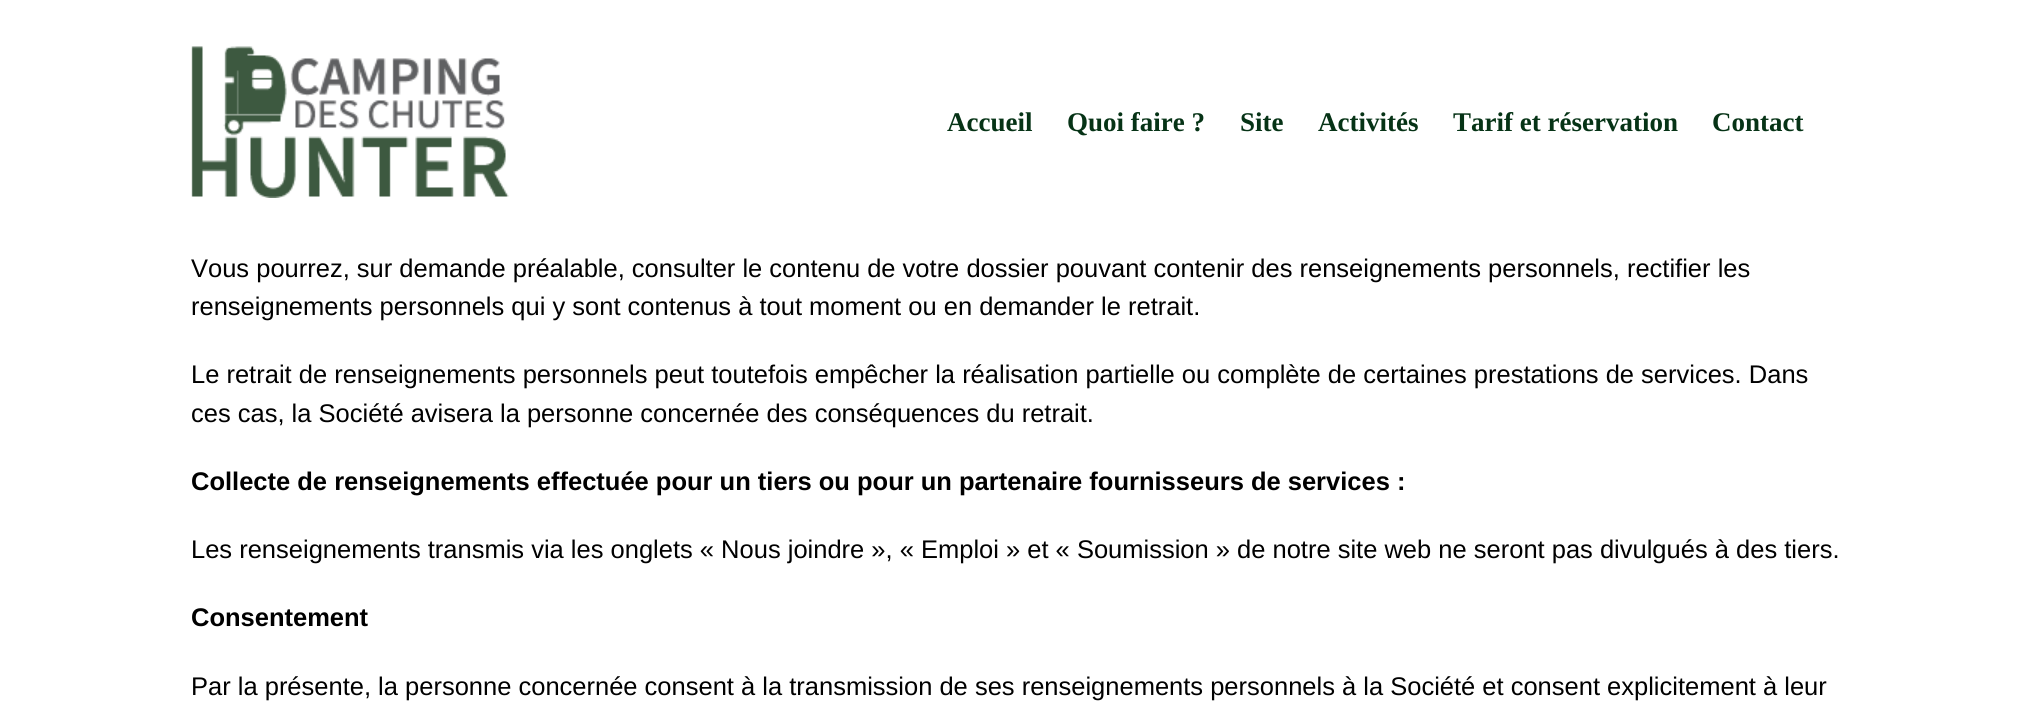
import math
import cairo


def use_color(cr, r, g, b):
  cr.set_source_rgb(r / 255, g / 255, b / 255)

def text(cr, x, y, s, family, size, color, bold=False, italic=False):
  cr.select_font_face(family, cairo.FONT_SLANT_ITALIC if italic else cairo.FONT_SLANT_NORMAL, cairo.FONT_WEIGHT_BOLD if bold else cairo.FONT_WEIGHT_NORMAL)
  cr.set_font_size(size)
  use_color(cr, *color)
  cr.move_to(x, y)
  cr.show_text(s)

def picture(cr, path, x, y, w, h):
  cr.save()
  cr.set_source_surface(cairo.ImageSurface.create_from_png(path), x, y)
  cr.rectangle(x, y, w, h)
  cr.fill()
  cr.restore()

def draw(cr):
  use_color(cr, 255, 255, 255)
  cr.paint()
  picture(cr, "img_01.png", 191, 46, 318, 152)
  text(cr, 947, 131, "Accueil", "Liberation Serif", 27, (6, 51, 22), bold=True)
  text(cr, 1067, 131, "Quoi faire ?", "Liberation Serif", 27, (6, 51, 22), bold=True)
  text(cr, 1240, 131, "Site", "Liberation Serif", 27, (6, 51, 22), bold=True)
  text(cr, 1318, 131, "Activités", "Liberation Serif", 27, (6, 51, 22), bold=True)
  text(cr, 1453, 131, "Tarif et réservation", "Liberation Serif", 27, (6, 51, 22), bold=True)
  text(cr, 1712, 131, "Contact", "Liberation Serif", 27, (6, 51, 22), bold=True)
  text(cr, 191, 277, "Vous pourrez, sur demande préalable, consulter le contenu de votre dossier pouvant contenir des renseignements personnels, rectifier les", "Liberation Sans", 25.5, (0, 0, 0))
  text(cr, 191, 315, "renseignements personnels qui y sont contenus à tout moment ou en demander le retrait.", "Liberation Sans", 25.5, (0, 0, 0))
  text(cr, 191, 383, "Le retrait de renseignements personnels peut toutefois empêcher la réalisation partielle ou complète de certaines prestations de services. Dans", "Liberation Sans", 25.5, (0, 0, 0))
  text(cr, 191, 422, "ces cas, la Société avisera la personne concernée des conséquences du retrait.", "Liberation Sans", 25.5, (0, 0, 0))
  text(cr, 191, 490, "Collecte de renseignements effectuée pour un tiers ou pour un partenaire fournisseurs de services :", "Liberation Sans", 25.5, (0, 0, 0), bold=True)
  text(cr, 191, 558, "Les renseignements transmis via les onglets « Nous joindre », « Emploi » et « Soumission » de notre site web ne seront pas divulgués à des tiers.", "Liberation Sans", 25.5, (0, 0, 0))
  text(cr, 191, 626, "Consentement", "Liberation Sans", 25.5, (0, 0, 0), bold=True)
  text(cr, 191, 695, "Par la présente, la personne concernée consent à la transmission de ses renseignements personnels à la Société et consent explicitement à leur", "Liberation Sans", 25.5, (0, 0, 0))


surface = cairo.ImageSurface(cairo.FORMAT_RGB24, 2032, 721)
cr = cairo.Context(surface)
options = cairo.FontOptions()
options.set_hint_metrics(cairo.HINT_METRICS_OFF)
options.set_hint_style(cairo.HINT_STYLE_NONE)
cr.set_font_options(options)
cr.set_miter_limit(4)
draw(cr)
surface.write_to_png("out.png")
